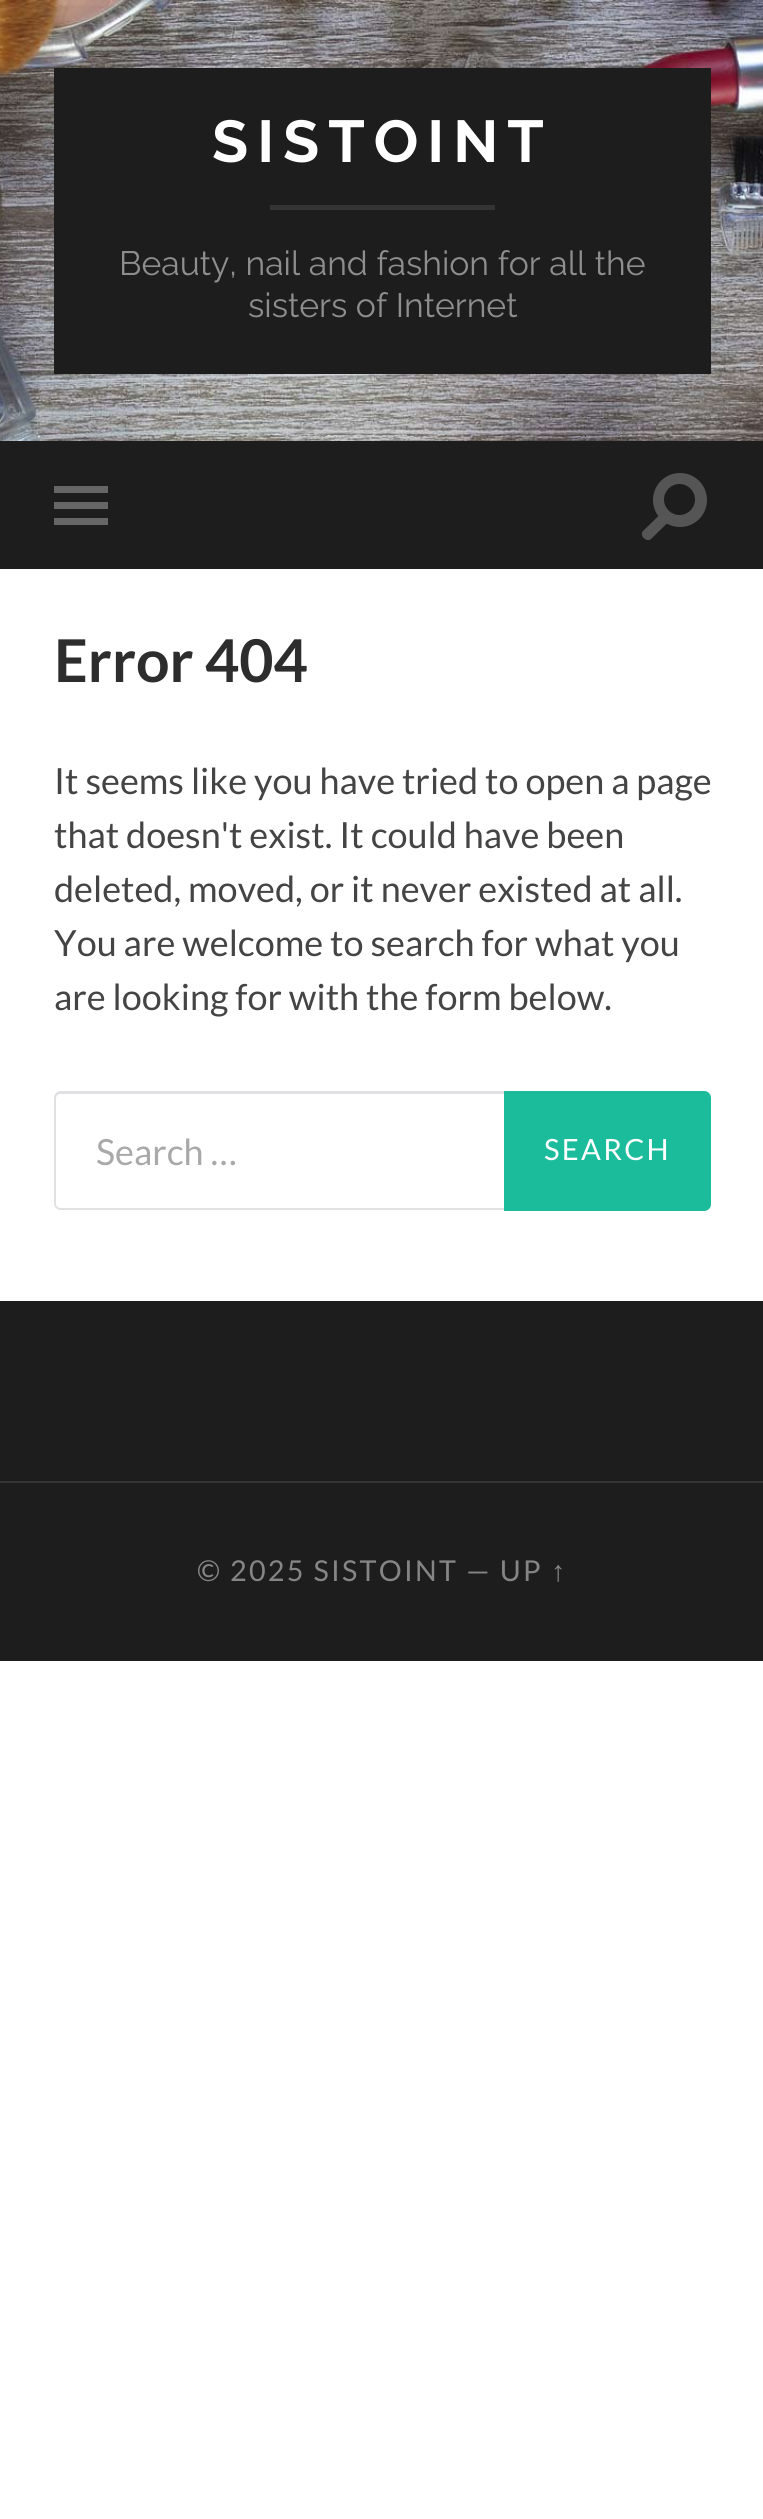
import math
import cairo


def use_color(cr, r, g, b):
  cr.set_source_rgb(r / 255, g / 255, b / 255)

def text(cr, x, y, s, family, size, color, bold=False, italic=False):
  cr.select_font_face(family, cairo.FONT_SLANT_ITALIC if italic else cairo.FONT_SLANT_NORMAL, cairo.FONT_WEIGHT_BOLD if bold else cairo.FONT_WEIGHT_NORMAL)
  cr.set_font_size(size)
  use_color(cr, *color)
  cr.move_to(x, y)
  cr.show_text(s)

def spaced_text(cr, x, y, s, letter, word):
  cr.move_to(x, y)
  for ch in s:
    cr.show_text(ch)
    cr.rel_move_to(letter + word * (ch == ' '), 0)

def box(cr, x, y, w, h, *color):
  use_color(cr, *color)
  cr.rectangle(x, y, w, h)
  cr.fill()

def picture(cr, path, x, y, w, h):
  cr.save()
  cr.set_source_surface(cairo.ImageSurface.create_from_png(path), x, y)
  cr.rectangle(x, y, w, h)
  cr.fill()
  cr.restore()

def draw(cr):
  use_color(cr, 255, 255, 255)
  cr.paint()
  picture(cr, "img_01.png", 0, 0, 763, 441)
  box(cr, 54, 68, 657, 306, 29, 29, 29)
  box(cr, 270, 205, 225, 5, 52, 52, 52)
  box(cr, 0, 441, 763, 128, 29, 29, 29)
  box(cr, 54, 486, 54, 7, 102, 102, 102)
  box(cr, 54, 502, 54, 7, 102, 102, 102)
  box(cr, 54, 518, 54, 7, 102, 102, 102)
  use_color(cr, 85, 85, 85)
  cr.arc(680, 500, 27, 0, 2 * math.pi)
  cr.fill()
  use_color(cr, 29, 29, 29)
  cr.arc(679.5, 499.5, 15.5, 0, 2 * math.pi)
  cr.fill()
  use_color(cr, 85, 85, 85)
  cr.new_path()
  cr.move_to(643, 531)
  cr.line_to(662.5, 512)
  cr.line_to(670.5, 520)
  cr.line_to(650.5, 539.5)
  cr.line_to(649, 540)
  cr.curve_to(644.5, 541, 639.5, 534.5, 643, 531)
  cr.close_path()
  cr.fill()
  use_color(cr, 225, 225, 227)
  cr.set_fill_rule(cairo.FILL_RULE_EVEN_ODD)
  cr.new_path()
  cr.move_to(61, 1091)
  cr.line_to(504, 1091)
  cr.line_to(504, 1210)
  cr.line_to(61, 1210)
  cr.curve_to(57, 1210, 54, 1207, 54, 1204)
  cr.line_to(54, 1098)
  cr.curve_to(54, 1094, 57, 1091, 61, 1091)
  cr.close_path()
  cr.move_to(61, 1094)
  cr.line_to(504, 1094)
  cr.line_to(504, 1208)
  cr.line_to(61, 1208)
  cr.curve_to(58, 1208, 56, 1206, 56, 1204)
  cr.line_to(56, 1098)
  cr.curve_to(56, 1096, 58, 1094, 61, 1094)
  cr.close_path()
  cr.fill()
  use_color(cr, 26, 188, 156)
  cr.new_path()
  cr.move_to(504, 1091)
  cr.line_to(704, 1091)
  cr.curve_to(708, 1091, 711, 1094, 711, 1098)
  cr.line_to(711, 1204)
  cr.curve_to(711, 1208, 708, 1211, 704, 1211)
  cr.line_to(504, 1211)
  cr.close_path()
  cr.fill()
  box(cr, 0, 1301, 763, 180, 29, 29, 29)
  box(cr, 0, 1483, 763, 178, 29, 29, 29)
  box(cr, 0, 1481, 763, 2, 52, 52, 52)
  cr.select_font_face("Raleway Thin")
  cr.set_font_size(59)
  use_color(cr, 255, 255, 255)
  spaced_text(cr, 212, 162, "SISTOINT", 9, 0)
  text(cr, 119, 275, "Beauty, nail and fashion for all the", "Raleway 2 Thin", 33.75, (142, 142, 142))
  text(cr, 248, 317, "sisters of Internet", "Raleway 2 Thin", 33.75, (142, 142, 142))
  text(cr, 54, 682, "Error 404", "Lato", 59, (45, 45, 45), bold=True)
  text(cr, 54, 794, "It seems like you have tried to open a page", "Lato", 36, (68, 68, 68))
  text(cr, 54, 848, "that doesn't exist. It could have been", "Lato", 36, (68, 68, 68))
  text(cr, 54, 902, "deleted, moved, or it never existed at all.", "Lato", 36, (68, 68, 68))
  text(cr, 54, 956, "You are welcome to search for what you", "Lato", 36, (68, 68, 68))
  text(cr, 54, 1010, "are looking for with the form below.", "Lato", 36, (68, 68, 68))
  text(cr, 96, 1165, "Search …", "Lato", 36, (169, 169, 169))
  cr.set_font_size(29.25)
  use_color(cr, 255, 255, 255)
  spaced_text(cr, 544, 1160, "SEARCH", 2.25, 0)
  cr.set_font_size(28.75)
  use_color(cr, 133, 133, 133)
  spaced_text(cr, 197, 1581, "© 2025 SISTOINT — UP", 2.25, 0)
  cr.select_font_face("Liberation Sans")
  spaced_text(cr, 551, 1581, "↑", 2.25, 0)


surface = cairo.ImageSurface(cairo.FORMAT_RGB24, 763, 2519)
cr = cairo.Context(surface)
options = cairo.FontOptions()
options.set_hint_metrics(cairo.HINT_METRICS_OFF)
options.set_hint_style(cairo.HINT_STYLE_NONE)
cr.set_font_options(options)
cr.set_miter_limit(4)
draw(cr)
surface.write_to_png("out.png")
